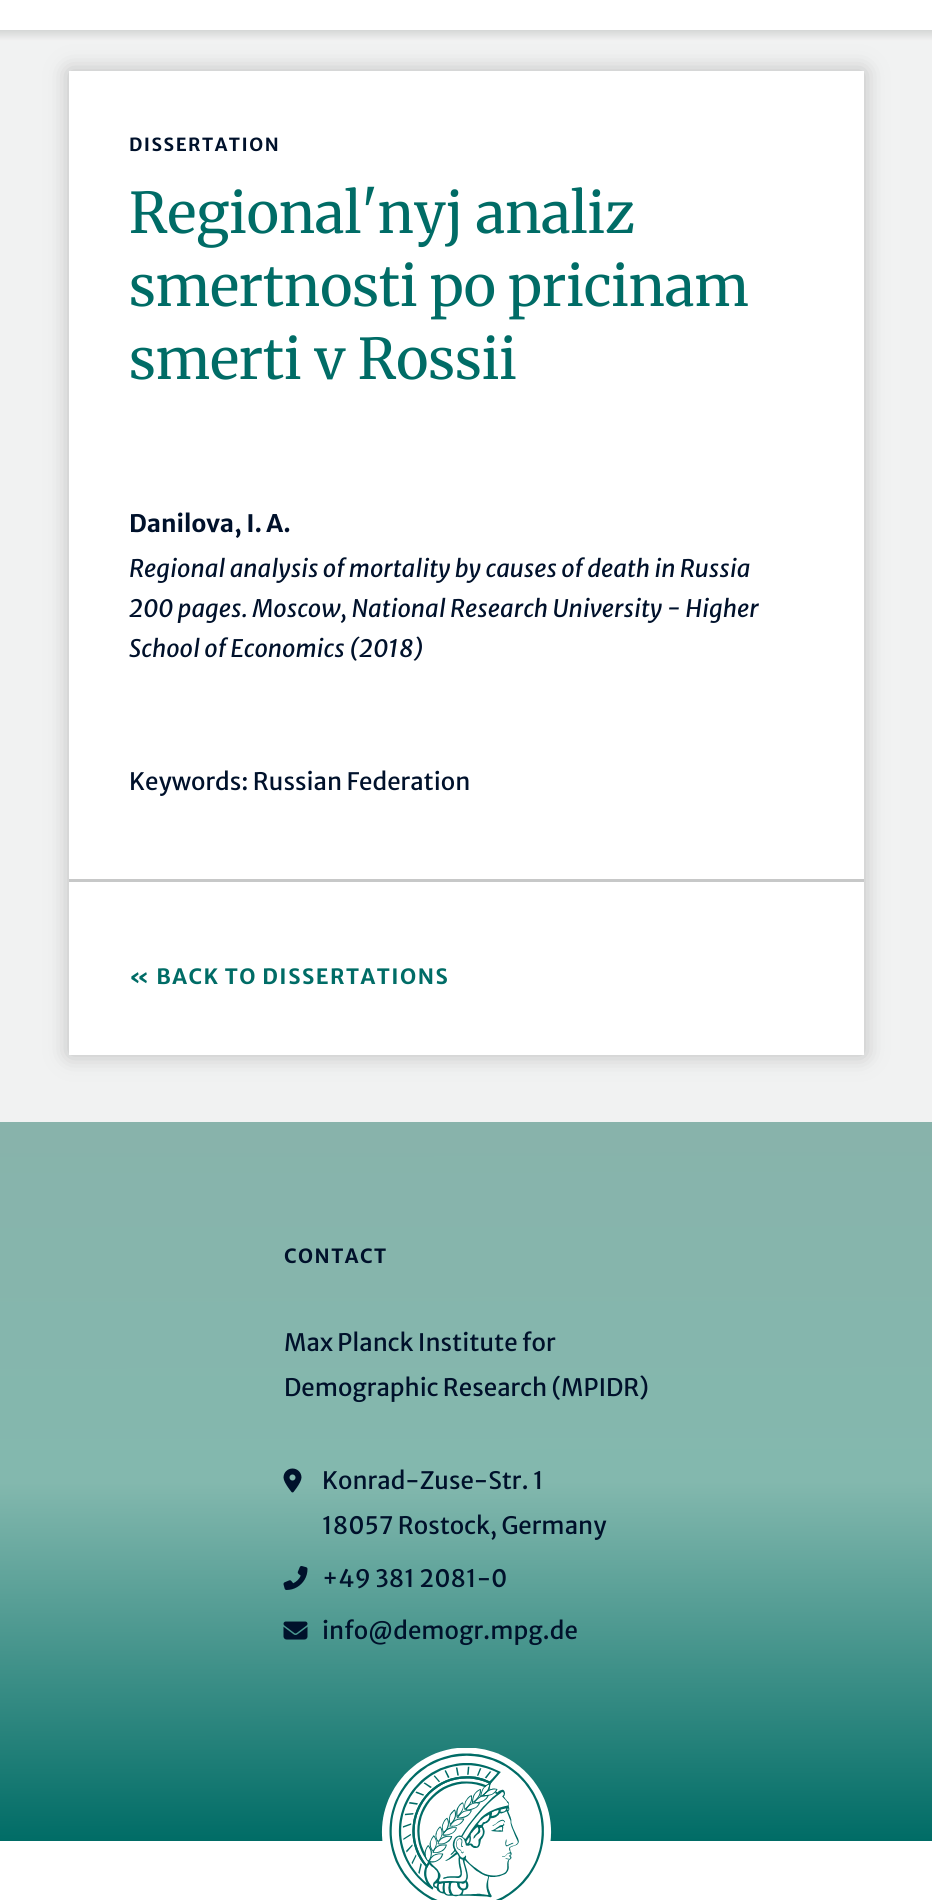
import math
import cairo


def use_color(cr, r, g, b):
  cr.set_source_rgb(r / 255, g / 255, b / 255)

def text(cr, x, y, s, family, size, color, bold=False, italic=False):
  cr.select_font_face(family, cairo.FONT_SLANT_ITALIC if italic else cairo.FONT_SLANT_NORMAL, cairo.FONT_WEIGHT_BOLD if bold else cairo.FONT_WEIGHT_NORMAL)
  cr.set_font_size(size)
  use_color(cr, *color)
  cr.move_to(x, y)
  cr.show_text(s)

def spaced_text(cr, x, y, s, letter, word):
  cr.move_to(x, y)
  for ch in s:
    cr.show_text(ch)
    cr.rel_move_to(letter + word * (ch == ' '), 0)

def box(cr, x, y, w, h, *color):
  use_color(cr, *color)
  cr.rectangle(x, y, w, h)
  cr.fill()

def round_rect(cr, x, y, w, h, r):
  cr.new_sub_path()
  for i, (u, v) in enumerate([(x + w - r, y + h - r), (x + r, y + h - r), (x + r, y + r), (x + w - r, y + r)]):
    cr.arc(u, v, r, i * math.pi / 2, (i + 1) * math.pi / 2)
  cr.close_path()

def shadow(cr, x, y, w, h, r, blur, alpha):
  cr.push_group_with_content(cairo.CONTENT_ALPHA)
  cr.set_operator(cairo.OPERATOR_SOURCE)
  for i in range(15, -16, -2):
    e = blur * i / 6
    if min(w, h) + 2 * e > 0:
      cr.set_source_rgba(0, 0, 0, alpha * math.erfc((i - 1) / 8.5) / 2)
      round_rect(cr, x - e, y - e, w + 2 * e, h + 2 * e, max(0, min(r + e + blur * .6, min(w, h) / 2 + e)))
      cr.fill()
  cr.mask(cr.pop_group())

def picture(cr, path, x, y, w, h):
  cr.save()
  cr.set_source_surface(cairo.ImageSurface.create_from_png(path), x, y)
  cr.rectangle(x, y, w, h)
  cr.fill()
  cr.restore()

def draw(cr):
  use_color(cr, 255, 255, 255)
  cr.paint()
  gradient = cairo.LinearGradient(467, 30, 467, 41)
  gradient.add_color_stop_rgba(0, 0.835, 0.843, 0.839, 1)
  gradient.add_color_stop_rgba(1, 0.949, 0.949, 0.949, 1)
  cr.set_source(gradient)
  cr.rectangle(0, 30, 932, 11)
  cr.fill()
  box(cr, 0, 41, 932, 1081, 241, 242, 242)
  use_color(cr, 187, 187, 187)
  shadow(cr, 69, 71, 795, 984, 0, 11, 1)
  box(cr, 69, 71, 795, 984, 255, 255, 255)
  box(cr, 69, 879, 795, 3, 199, 200, 200)
  gradient = cairo.LinearGradient(466, 1122, 467, 1841)
  gradient.add_color_stop_rgba(0, 0.533, 0.702, 0.671, 1)
  gradient.add_color_stop_rgba(0.5, 0.514, 0.722, 0.682, 1)
  gradient.add_color_stop_rgba(1, 0, 0.424, 0.4, 1)
  cr.set_source(gradient)
  cr.rectangle(0, 1122, 932, 719)
  cr.fill()
  picture(cr, "img_01.png", 283, 1468, 19, 25)
  picture(cr, "img_02.png", 283, 1566, 25, 24)
  picture(cr, "img_03.png", 283, 1621, 25, 19)
  picture(cr, "img_04.png", 381, 1748, 171, 152)
  cr.select_font_face("Merriweather Sans", cairo.FONT_SLANT_NORMAL, cairo.FONT_WEIGHT_BOLD)
  cr.set_font_size(18)
  use_color(cr, 0, 17, 43)
  spaced_text(cr, 129, 151, "DISSERTATION", 1.5, 0)
  text(cr, 129, 233, "Regional'nyj analiz", "Merriweather", 56, (0, 108, 102))
  text(cr, 129, 306, "smertnosti po pricinam", "Merriweather", 56, (0, 108, 102))
  text(cr, 129, 379, "smerti v Rossii", "Merriweather", 56, (0, 108, 102))
  text(cr, 129, 532, "Danilova, I. A.", "Merriweather Sans", 24, (0, 17, 43), bold=True)
  text(cr, 129, 577, "Regional analysis of mortality by causes of death in Russia", "Merriweather Sans", 24, (0, 17, 43), italic=True)
  text(cr, 129, 617, "200 pages. Moscow, National Research University - Higher", "Merriweather Sans", 24, (0, 17, 43), italic=True)
  text(cr, 129, 657, "School of Economics (2018)", "Merriweather Sans", 24, (0, 17, 43), italic=True)
  text(cr, 129, 790, "Keywords: Russian Federation", "Merriweather Sans", 24, (0, 17, 43))
  cr.select_font_face("Merriweather Sans", cairo.FONT_SLANT_NORMAL, cairo.FONT_WEIGHT_BOLD)
  cr.set_font_size(21)
  use_color(cr, 0, 108, 102)
  spaced_text(cr, 129, 984, "« BACK TO DISSERTATIONS", 1.5, 0)
  cr.set_font_size(19.5)
  use_color(cr, 0, 17, 43)
  spaced_text(cr, 284, 1263, "CONTACT", 1.5, 0)
  text(cr, 284, 1351, "Max Planck Institute for", "Merriweather Sans", 24, (0, 17, 43))
  text(cr, 284, 1396, "Demographic Research (MPIDR)", "Merriweather Sans", 24, (0, 17, 43))
  text(cr, 322, 1489, "Konrad-Zuse-Str. 1", "Merriweather Sans", 24, (0, 17, 43))
  text(cr, 322, 1534, "18057 Rostock, Germany", "Merriweather Sans", 24, (0, 17, 43))
  text(cr, 322, 1587, "+49 381 2081-0", "Merriweather Sans", 24, (0, 17, 43))
  text(cr, 322, 1639, "info@demogr.mpg.de", "Merriweather Sans", 24, (0, 17, 43))


surface = cairo.ImageSurface(cairo.FORMAT_RGB24, 932, 1900)
cr = cairo.Context(surface)
options = cairo.FontOptions()
options.set_hint_metrics(cairo.HINT_METRICS_OFF)
options.set_hint_style(cairo.HINT_STYLE_NONE)
cr.set_font_options(options)
cr.set_miter_limit(4)
draw(cr)
surface.write_to_png("out.png")
